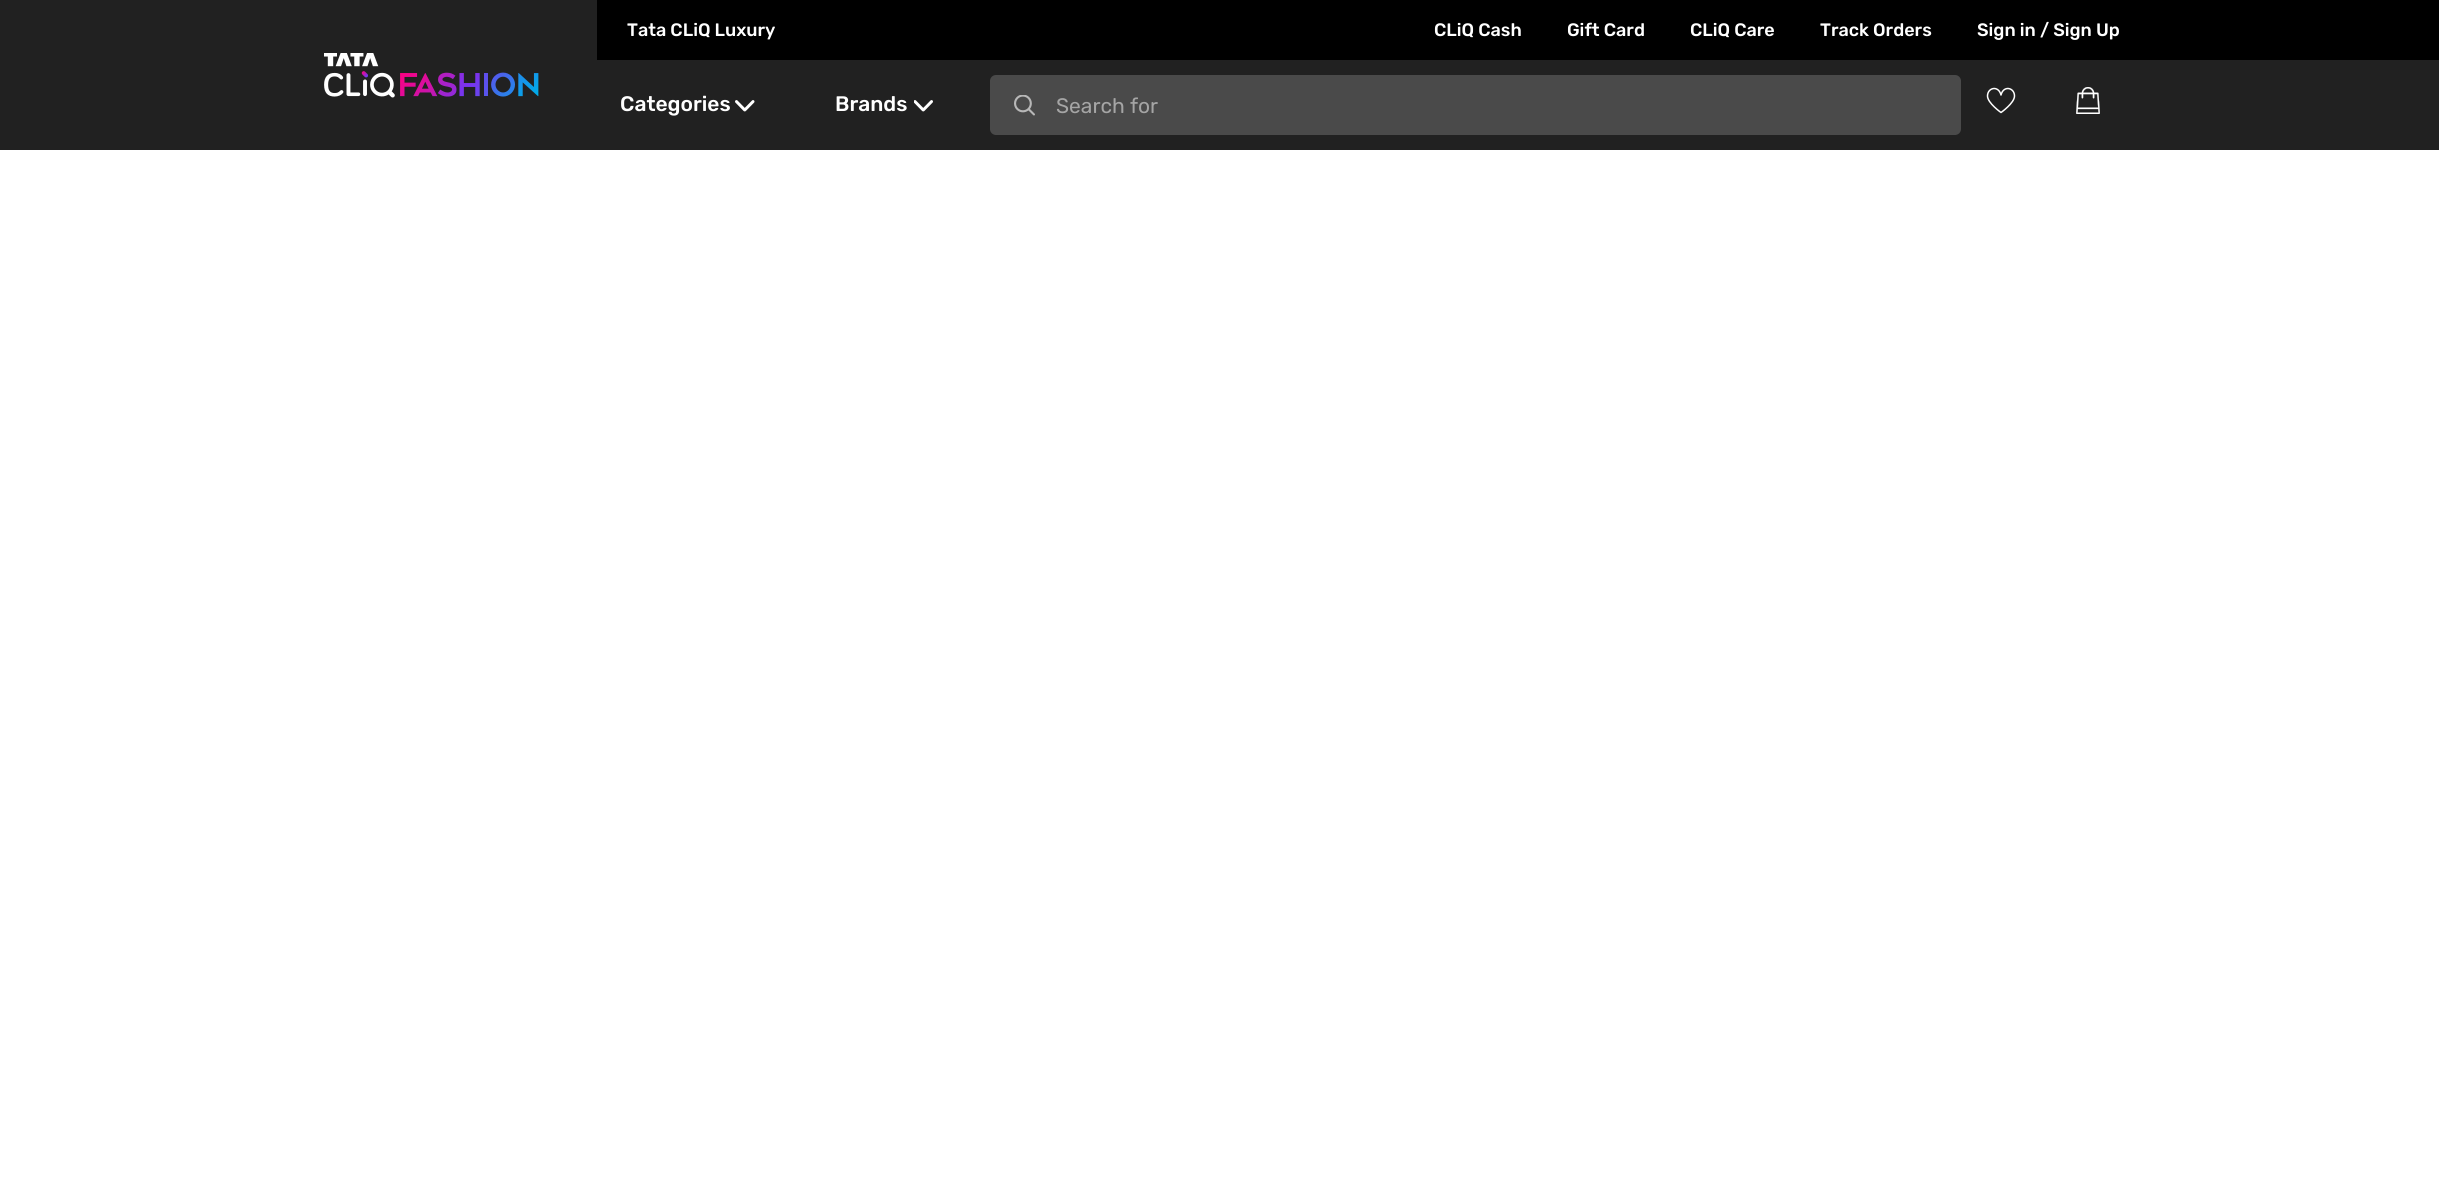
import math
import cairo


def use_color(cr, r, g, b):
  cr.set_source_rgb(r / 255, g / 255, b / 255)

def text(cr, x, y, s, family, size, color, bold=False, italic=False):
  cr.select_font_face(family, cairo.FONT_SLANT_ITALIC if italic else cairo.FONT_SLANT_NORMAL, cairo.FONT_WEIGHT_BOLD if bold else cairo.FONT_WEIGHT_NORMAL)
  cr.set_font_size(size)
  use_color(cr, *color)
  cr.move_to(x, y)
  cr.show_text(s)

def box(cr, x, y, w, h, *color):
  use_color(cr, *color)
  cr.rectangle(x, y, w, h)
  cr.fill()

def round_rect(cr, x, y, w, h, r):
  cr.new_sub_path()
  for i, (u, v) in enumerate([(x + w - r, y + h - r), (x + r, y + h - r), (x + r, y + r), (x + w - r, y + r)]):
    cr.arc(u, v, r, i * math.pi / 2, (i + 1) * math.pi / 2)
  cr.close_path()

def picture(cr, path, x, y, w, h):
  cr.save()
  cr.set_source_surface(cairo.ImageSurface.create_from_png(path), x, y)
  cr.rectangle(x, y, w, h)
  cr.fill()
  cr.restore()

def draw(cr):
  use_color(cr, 255, 255, 255)
  cr.paint()
  box(cr, 0, 0, 2439, 150, 33, 33, 33)
  box(cr, 597, 0, 1842, 60, 0, 0, 0)
  picture(cr, "img_01.png", 324, 53, 215, 45)
  picture(cr, "img_02.png", 735, 100, 20, 12)
  picture(cr, "img_03.png", 914, 100, 19, 12)
  use_color(cr, 74, 74, 74)
  round_rect(cr, 990, 75, 971, 60, 6)
  cr.fill()
  picture(cr, "img_04.png", 1014, 95, 21, 21)
  cr.new_path()
  cr.move_to(2001, 112.5)
  cr.curve_to(2001, 112.5, 2014.5, 103, 2014.5, 96)
  cr.curve_to(2014.5, 87.5, 2003.5, 85, 2001, 95)
  cr.curve_to(1998.5, 85, 1987.5, 87.5, 1987.5, 96)
  cr.curve_to(1987.5, 103, 2001, 112.5, 2001, 112.5)
  cr.close_path()
  use_color(cr, 255, 255, 255)
  cr.set_line_width(1.5)
  cr.set_line_join(cairo.LINE_JOIN_ROUND)
  cr.stroke()
  picture(cr, "img_05.png", 2076, 87, 24, 27)
  text(cr, 627, 36, "Tata CLiQ Luxury", "Rubik Medium", 18, (255, 255, 255))
  text(cr, 1434, 36, "CLiQ Cash", "Rubik Medium", 18, (255, 255, 255))
  text(cr, 1567, 36, "Gift Card", "Rubik Medium", 18, (255, 255, 255))
  text(cr, 1690, 36, "CLiQ Care", "Rubik Medium", 18, (255, 255, 255))
  text(cr, 1820, 36, "Track Orders", "Rubik Medium", 18, (255, 255, 255))
  text(cr, 1977, 36, "Sign in / Sign Up", "Rubik Medium", 18, (255, 255, 255))
  text(cr, 620, 111, "Categories", "Rubik Medium", 21, (255, 255, 255))
  text(cr, 835, 111, "Brands", "Rubik Medium", 21, (255, 255, 255))
  text(cr, 1056, 113, "Search for", "Rubik Light", 21, (165, 165, 165))


surface = cairo.ImageSurface(cairo.FORMAT_RGB24, 2439, 1195)
cr = cairo.Context(surface)
options = cairo.FontOptions()
options.set_hint_metrics(cairo.HINT_METRICS_OFF)
options.set_hint_style(cairo.HINT_STYLE_NONE)
cr.set_font_options(options)
cr.set_miter_limit(4)
draw(cr)
surface.write_to_png("out.png")
